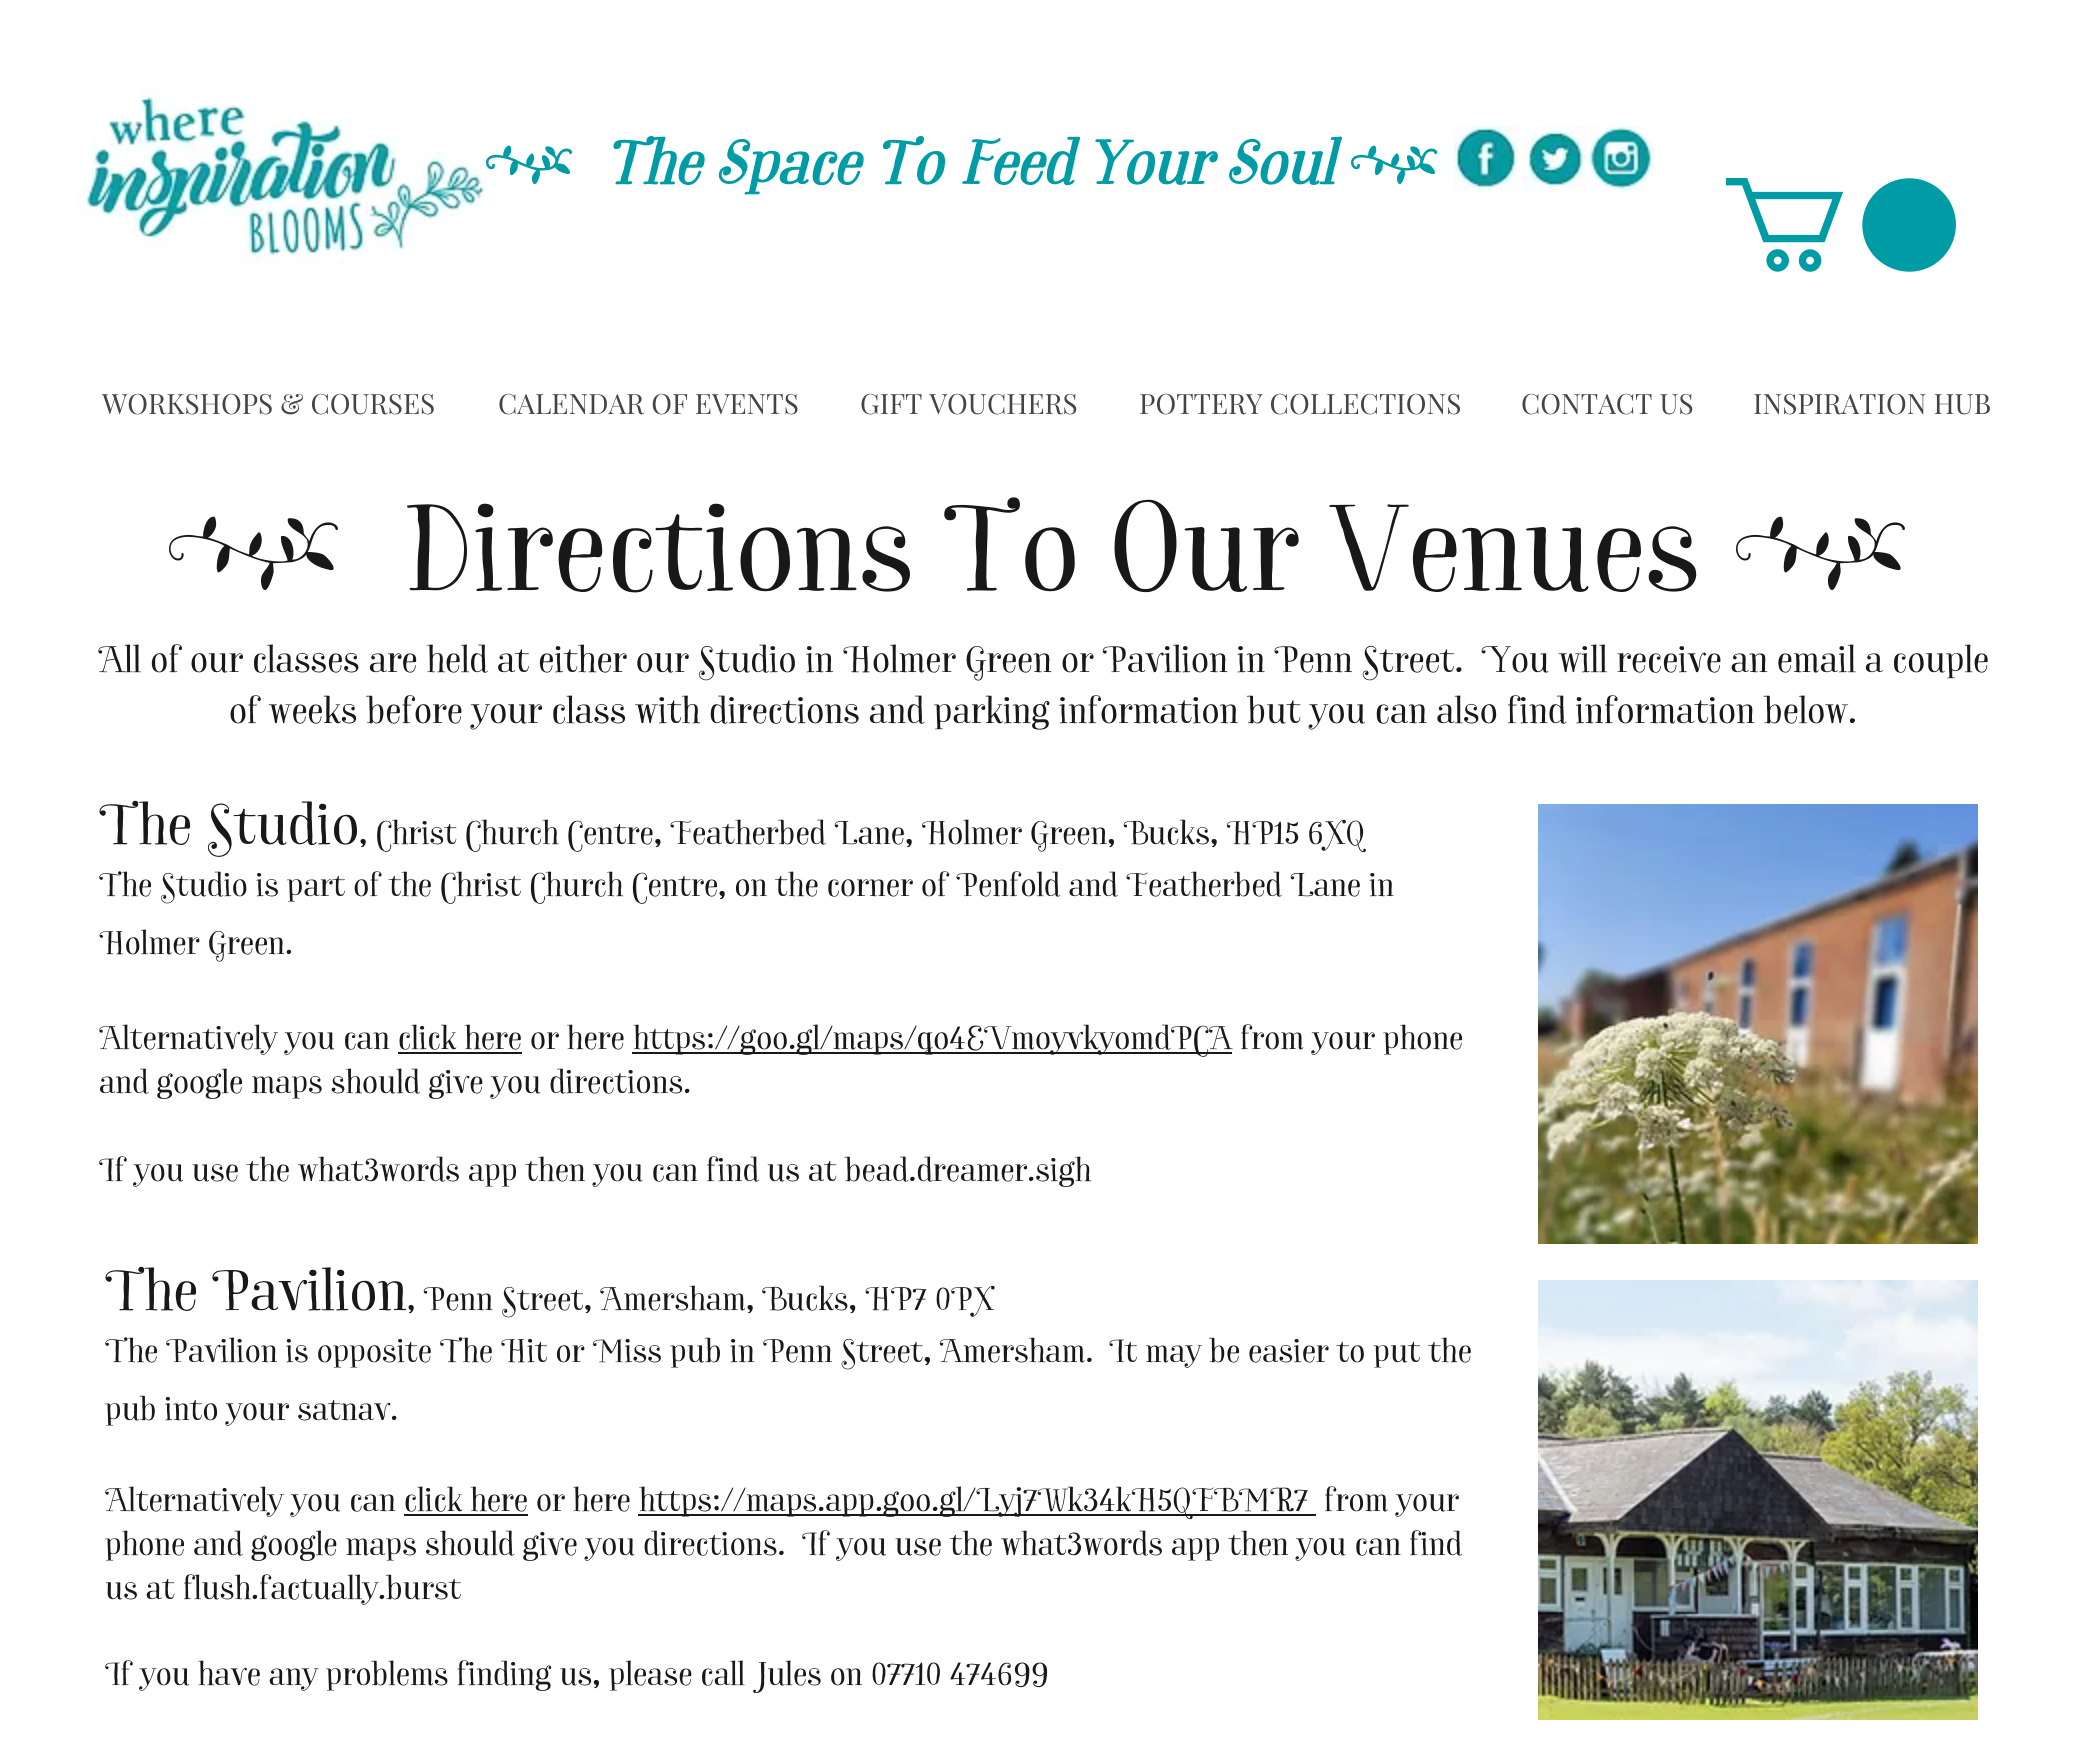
import math
import cairo


def use_color(cr, r, g, b):
  cr.set_source_rgb(r / 255, g / 255, b / 255)

def text(cr, x, y, s, family, size, color, bold=False, italic=False):
  cr.select_font_face(family, cairo.FONT_SLANT_ITALIC if italic else cairo.FONT_SLANT_NORMAL, cairo.FONT_WEIGHT_BOLD if bold else cairo.FONT_WEIGHT_NORMAL)
  cr.set_font_size(size)
  use_color(cr, *color)
  cr.move_to(x, y)
  cr.show_text(s)

def box(cr, x, y, w, h, *color):
  use_color(cr, *color)
  cr.rectangle(x, y, w, h)
  cr.fill()

def picture(cr, path, x, y, w, h):
  cr.save()
  cr.set_source_surface(cairo.ImageSurface.create_from_png(path), x, y)
  cr.rectangle(x, y, w, h)
  cr.fill()
  cr.restore()

def draw(cr):
  use_color(cr, 255, 255, 255)
  cr.paint()
  picture(cr, "img_01.png", 78, 88, 414, 176)
  picture(cr, "img_02.png", 1454, 126, 66, 66)
  picture(cr, "img_03.png", 1522, 126, 65, 66)
  picture(cr, "img_04.png", 1590, 126, 65, 66)
  picture(cr, "img_05.png", 1726, 178, 230, 94)
  box(cr, 398, 1052, 124, 2, 24, 24, 24)
  box(cr, 632, 1052, 600, 2, 24, 24, 24)
  picture(cr, "img_06.png", 1538, 804, 440, 440)
  box(cr, 404, 1514, 124, 2, 24, 24, 24)
  box(cr, 638, 1514, 678, 2, 24, 24, 24)
  picture(cr, "img_07.png", 1538, 1280, 440, 440)
  text(cr, 483, 184, "C", "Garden", 60, (0, 156, 166), bold=True)
  text(cr, 604, 184, "The Space To Feed Your Soul", "Garden", 60, (0, 156, 166), bold=True, italic=True)
  text(cr, 1348, 184, "C", "Garden", 60, (0, 156, 166), bold=True)
  text(cr, 102, 414, "WORKSHOPS & COURSES", "Playfair Display", 28, (68, 68, 68))
  text(cr, 498, 414, "CALENDAR OF EVENTS", "Playfair Display", 28, (68, 68, 68))
  text(cr, 860, 414, "GIFT VOUCHERS", "Playfair Display", 28, (68, 68, 68))
  text(cr, 1139, 414, "POTTERY COLLECTIONS", "Playfair Display", 28, (68, 68, 68))
  text(cr, 1521, 414, "CONTACT US", "Playfair Display", 28, (68, 68, 68))
  text(cr, 1753, 414, "INSPIRATION HUB", "Playfair Display", 28, (68, 68, 68))
  text(cr, 163, 590, "C", "Garden", 120, (24, 24, 24))
  text(cr, 404, 590, "Directions To Our Venues", "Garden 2", 120, (24, 24, 24))
  text(cr, 1730, 590, "C", "Garden", 120, (24, 24, 24))
  text(cr, 98, 672, "All of our classes are held at either our Studio in Holmer Green or Pavilion in Penn Street.  You will receive an email a couple", "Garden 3", 36, (24, 24, 24))
  text(cr, 229, 723, "of weeks before your class with directions and parking information but you can also find information below.", "Garden 3", 36, (24, 24, 24))
  text(cr, 99, 844, "The Studio", "Garden 3", 56, (24, 24, 24))
  text(cr, 359, 844, ", Christ Church Centre, Featherbed Lane, Holmer Green, Bucks, HP15 6XQ", "Garden 3", 32, (24, 24, 24))
  text(cr, 99, 896, "The Studio is part of the Christ Church Centre, on the corner of Penfold and Featherbed Lane in", "Garden 3", 32, (24, 24, 24))
  text(cr, 99, 954, "Holmer Green.", "Garden 3", 32, (24, 24, 24))
  text(cr, 99, 1049, "Alternatively you can click here or here", "Garden 3", 32, (24, 24, 24))
  text(cr, 633, 1049, "https://goo.gl/maps/qo4EVmoyvkyomdPCA from your phone", "Garden 3", 32, (24, 24, 24))
  text(cr, 99, 1093, "and google maps should give you directions.", "Garden 3", 32, (24, 24, 24))
  text(cr, 99, 1181, "If you use the what3words app then you can find us at bead.dreamer.sigh", "Garden 3", 32, (24, 24, 24))
  text(cr, 105, 1310, "The Pavilion", "Garden 3", 56, (24, 24, 24))
  text(cr, 407, 1310, ", Penn Street, Amersham, Bucks, HP7 0PX", "Garden 3", 32, (24, 24, 24))
  text(cr, 105, 1362, "The Pavilion is opposite The Hit or Miss pub in Penn Street, Amersham.  It may be easier to put the", "Garden 3", 32, (24, 24, 24))
  text(cr, 105, 1420, "pub into your satnav.", "Garden 3", 32, (24, 24, 24))
  text(cr, 105, 1511, "Alternatively you can click here or here", "Garden 3", 32, (24, 24, 24))
  text(cr, 639, 1511, "https://maps.app.goo.gl/Lyj7Wk34kH5QFBMR7", "Garden 3", 32, (24, 24, 24))
  text(cr, 1324, 1511, "from your", "Garden 3", 32, (24, 24, 24))
  text(cr, 105, 1555, "phone and google maps should give you directions.", "Garden 3", 32, (24, 24, 24))
  text(cr, 802, 1555, "If you use the what3words app then you can find", "Garden 3", 32, (24, 24, 24))
  text(cr, 105, 1599, "us at flush.factually.burst", "Garden 3", 32, (24, 24, 24))
  text(cr, 105, 1685, "If you have any problems finding us, please call Jules on 07710 474699", "Garden 3", 32, (24, 24, 24))


surface = cairo.ImageSurface(cairo.FORMAT_RGB24, 2082, 1748)
cr = cairo.Context(surface)
options = cairo.FontOptions()
options.set_hint_metrics(cairo.HINT_METRICS_OFF)
options.set_hint_style(cairo.HINT_STYLE_NONE)
cr.set_font_options(options)
cr.set_miter_limit(4)
draw(cr)
surface.write_to_png("out.png")
